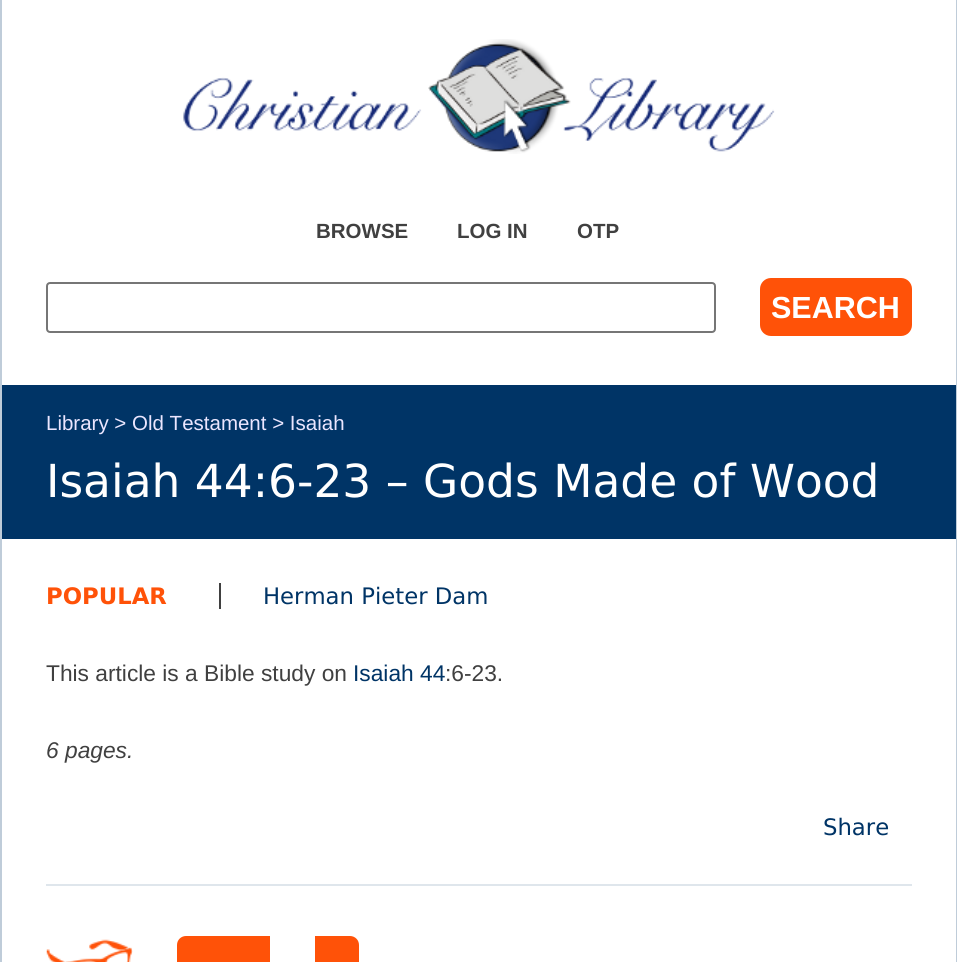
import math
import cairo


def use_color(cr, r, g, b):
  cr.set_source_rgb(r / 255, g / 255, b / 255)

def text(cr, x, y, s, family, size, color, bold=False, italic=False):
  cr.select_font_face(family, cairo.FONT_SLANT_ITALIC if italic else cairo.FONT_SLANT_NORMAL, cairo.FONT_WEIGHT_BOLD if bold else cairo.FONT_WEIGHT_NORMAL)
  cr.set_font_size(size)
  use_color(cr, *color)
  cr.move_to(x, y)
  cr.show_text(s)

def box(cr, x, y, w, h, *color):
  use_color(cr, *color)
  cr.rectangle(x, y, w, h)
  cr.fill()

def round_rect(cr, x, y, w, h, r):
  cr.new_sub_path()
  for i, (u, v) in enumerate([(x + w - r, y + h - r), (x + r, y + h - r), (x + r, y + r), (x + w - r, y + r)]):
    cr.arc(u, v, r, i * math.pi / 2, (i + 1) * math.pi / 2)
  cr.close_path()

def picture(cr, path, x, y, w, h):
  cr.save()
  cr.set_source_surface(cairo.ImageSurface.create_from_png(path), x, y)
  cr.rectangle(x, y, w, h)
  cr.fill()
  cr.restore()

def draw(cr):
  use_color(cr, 255, 255, 255)
  cr.paint()
  box(cr, 956, 0, 1, 962, 191, 204, 217)
  box(cr, 0, 0, 2, 962, 191, 204, 217)
  picture(cr, "img_01.png", 183, 39, 592, 115)
  round_rect(cr, 47, 283, 668, 49, 3)
  use_color(cr, 118, 118, 118)
  cr.stroke()
  use_color(cr, 255, 82, 8)
  round_rect(cr, 760, 278, 152, 58, 11)
  cr.fill()
  box(cr, 2, 385, 954, 154, 0, 52, 102)
  box(cr, 46, 884, 866, 2, 223, 230, 236)
  box(cr, 219, 583, 2, 26, 64, 64, 64)
  picture(cr, "img_02.png", 46, 939, 87, 23)
  use_color(cr, 255, 82, 8)
  cr.new_path()
  cr.move_to(186, 936)
  cr.line_to(270, 936)
  cr.line_to(270, 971)
  cr.line_to(186, 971)
  cr.curve_to(181, 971, 177, 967, 177, 962)
  cr.line_to(177, 945)
  cr.curve_to(177, 940, 181, 936, 186, 936)
  cr.close_path()
  cr.fill()
  cr.new_path()
  cr.move_to(315, 936)
  cr.line_to(350, 936)
  cr.curve_to(355, 936, 359, 940, 359, 945)
  cr.line_to(359, 962)
  cr.curve_to(359, 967, 355, 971, 350, 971)
  cr.line_to(315, 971)
  cr.close_path()
  cr.fill()
  text(cr, 316, 238, "BROWSE", "Liberation Sans", 20.5, (64, 64, 64), bold=True)
  text(cr, 457, 238, "LOG IN", "Liberation Sans", 20.5, (64, 64, 64), bold=True)
  text(cr, 577, 238, "OTP", "Liberation Sans", 20.5, (64, 64, 64), bold=True)
  text(cr, 771, 318, "SEARCH", "Liberation Sans", 30.5, (255, 255, 255), bold=True)
  text(cr, 46, 430, "Library > Old Testament > Isaiah", "Liberation Sans", 20.5, (235, 230, 255))
  text(cr, 46, 497, "Isaiah 44:6-23 – Gods Made of Wood", "DejaVu Sans", 45.5, (255, 255, 255))
  text(cr, 46, 604, "POPULAR", "DejaVu Sans", 22.75, (255, 82, 8), bold=True)
  text(cr, 263, 604, "Herman Pieter Dam", "DejaVu Sans", 22.75, (0, 52, 102))
  text(cr, 46, 681, "This article is a Bible study on", "Liberation Sans", 22.75, (64, 64, 64))
  text(cr, 353, 681, "Isaiah 44", "Liberation Sans", 22.75, (0, 52, 102))
  text(cr, 445, 681, ":6-23.", "Liberation Sans", 22.75, (64, 64, 64))
  text(cr, 46, 758, "6 pages.", "Liberation Sans", 22.75, (64, 64, 64), italic=True)
  text(cr, 823, 835, "Share", "DejaVu Sans", 22.75, (0, 52, 102))


surface = cairo.ImageSurface(cairo.FORMAT_RGB24, 957, 962)
cr = cairo.Context(surface)
options = cairo.FontOptions()
options.set_hint_metrics(cairo.HINT_METRICS_OFF)
options.set_hint_style(cairo.HINT_STYLE_NONE)
cr.set_font_options(options)
cr.set_miter_limit(4)
draw(cr)
surface.write_to_png("out.png")
